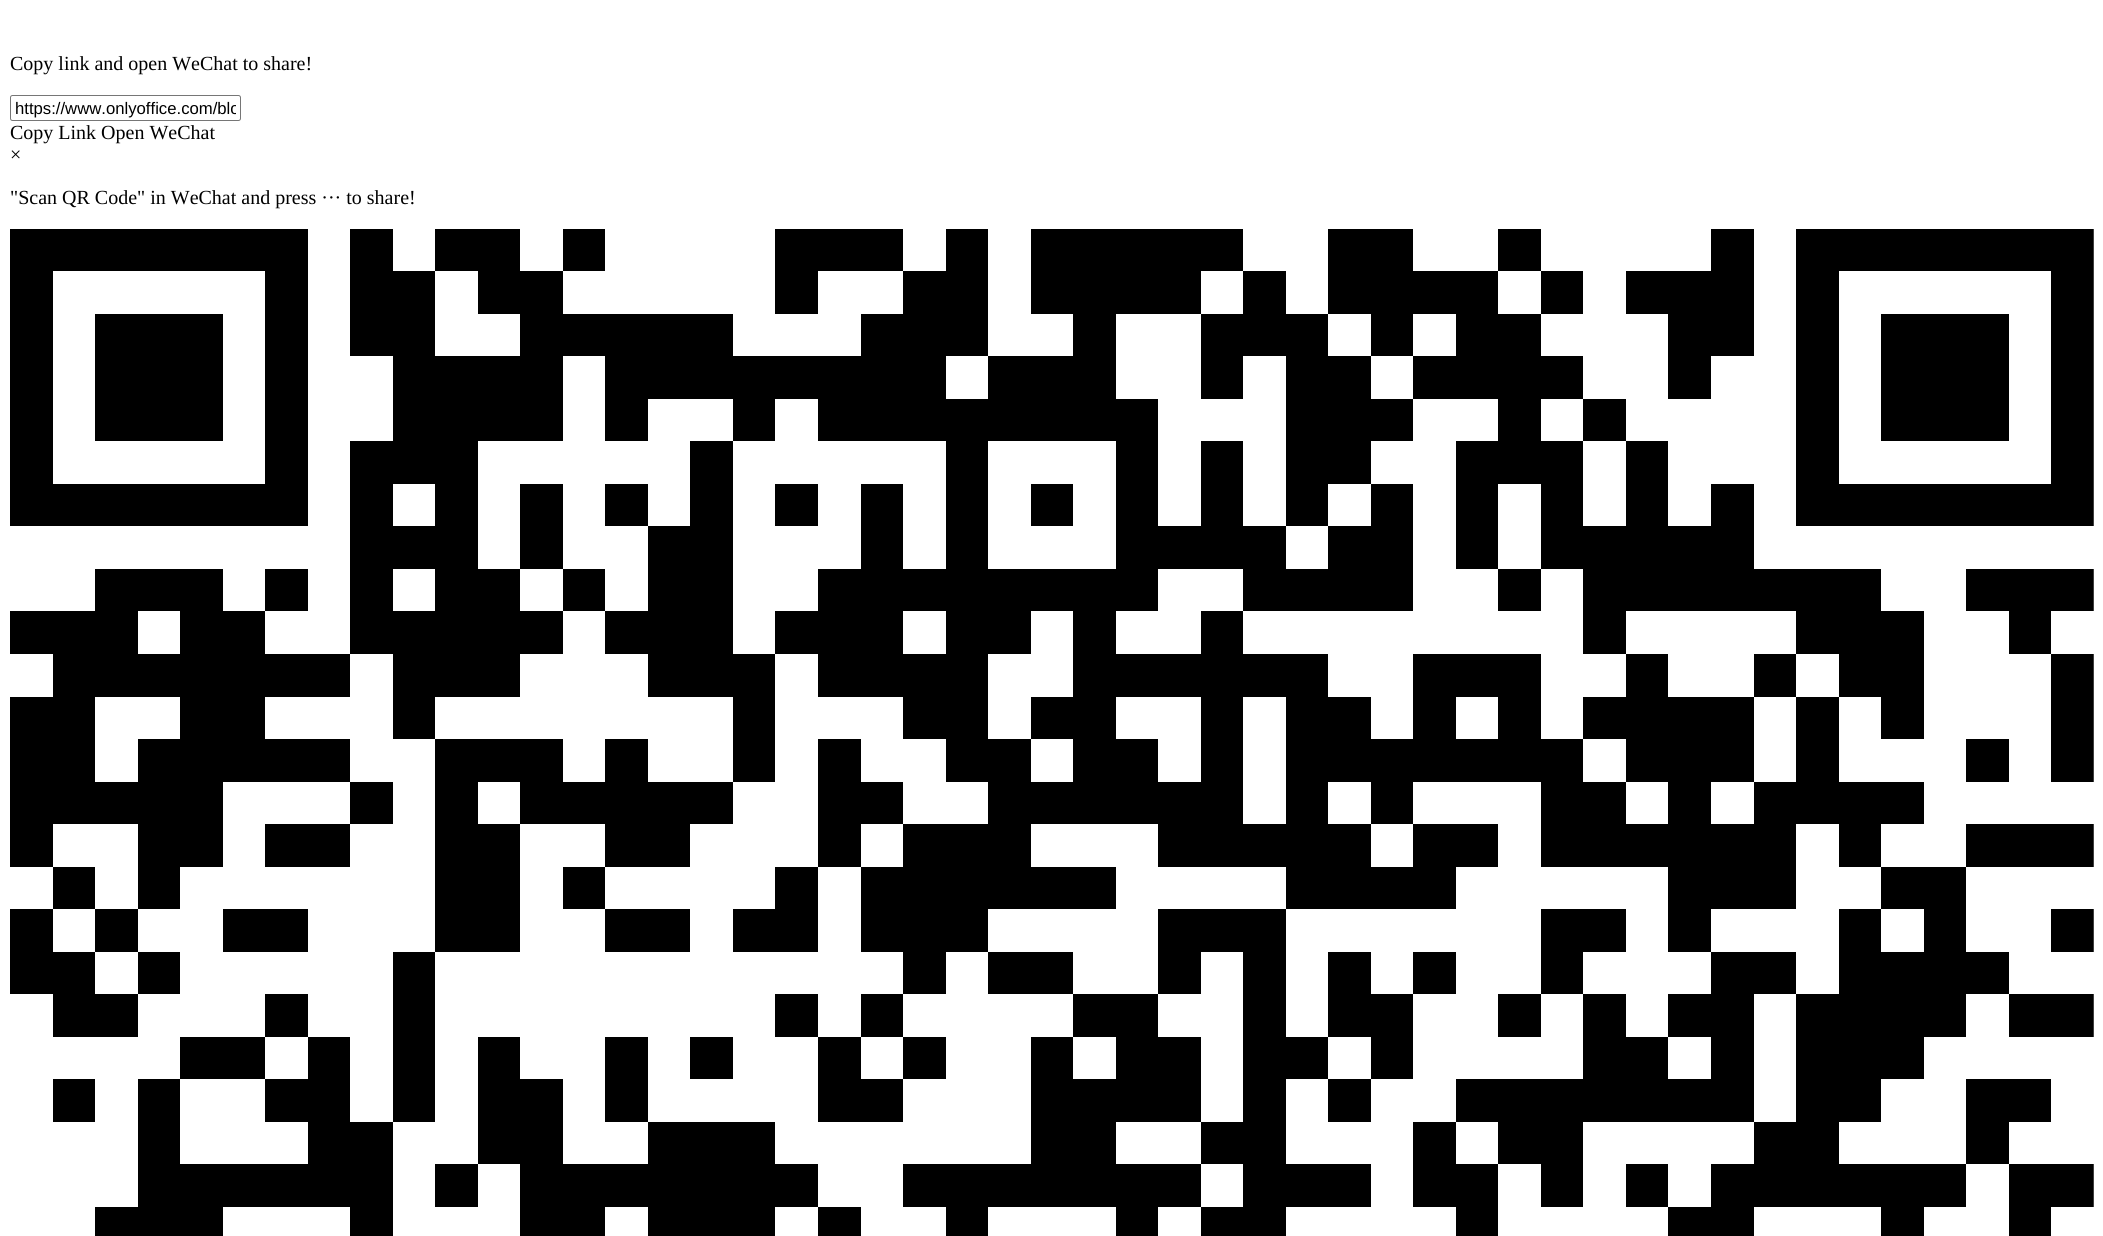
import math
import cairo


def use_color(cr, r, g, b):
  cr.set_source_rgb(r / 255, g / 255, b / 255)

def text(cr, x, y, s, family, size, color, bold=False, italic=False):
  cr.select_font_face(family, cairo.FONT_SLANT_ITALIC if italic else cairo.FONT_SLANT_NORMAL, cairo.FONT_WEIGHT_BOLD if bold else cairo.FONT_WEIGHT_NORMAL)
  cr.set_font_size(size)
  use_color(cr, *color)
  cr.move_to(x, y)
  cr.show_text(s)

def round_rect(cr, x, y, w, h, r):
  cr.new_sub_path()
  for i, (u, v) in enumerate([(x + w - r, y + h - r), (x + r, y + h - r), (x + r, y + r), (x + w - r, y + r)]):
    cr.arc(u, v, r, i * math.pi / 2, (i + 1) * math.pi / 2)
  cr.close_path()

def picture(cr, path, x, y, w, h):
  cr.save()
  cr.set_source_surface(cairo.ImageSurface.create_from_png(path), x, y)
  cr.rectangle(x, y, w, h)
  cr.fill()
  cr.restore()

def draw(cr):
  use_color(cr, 255, 255, 255)
  cr.paint()
  round_rect(cr, 10.5, 95.5, 230, 25, 2)
  use_color(cr, 118, 118, 118)
  cr.set_line_width(1)
  cr.stroke()
  picture(cr, "img_01.png", 10, 229, 2084, 1007)
  text(cr, 10, 70, "Copy link and open WeChat to share!", "Liberation Serif", 20, (0, 0, 0))
  cr.save()
  cr.rectangle(15, 99, 221, 19)
  cr.clip()
  text(cr, 15, 114, "https://www.onlyoffice.com/blo", "Liberation Sans", 16.7, (0, 0, 0))
  cr.restore()
  text(cr, 10, 139, "Copy Link Open WeChat", "Liberation Serif", 20, (0, 0, 0))
  text(cr, 10, 161, "×", "Liberation Serif", 20, (0, 0, 0))
  text(cr, 10, 204, "\"Scan QR Code\" in WeChat and press ··· to share!", "Liberation Serif", 20, (0, 0, 0))


surface = cairo.ImageSurface(cairo.FORMAT_RGB24, 2103, 1236)
cr = cairo.Context(surface)
options = cairo.FontOptions()
options.set_hint_metrics(cairo.HINT_METRICS_OFF)
options.set_hint_style(cairo.HINT_STYLE_NONE)
cr.set_font_options(options)
cr.set_miter_limit(4)
draw(cr)
surface.write_to_png("out.png")
